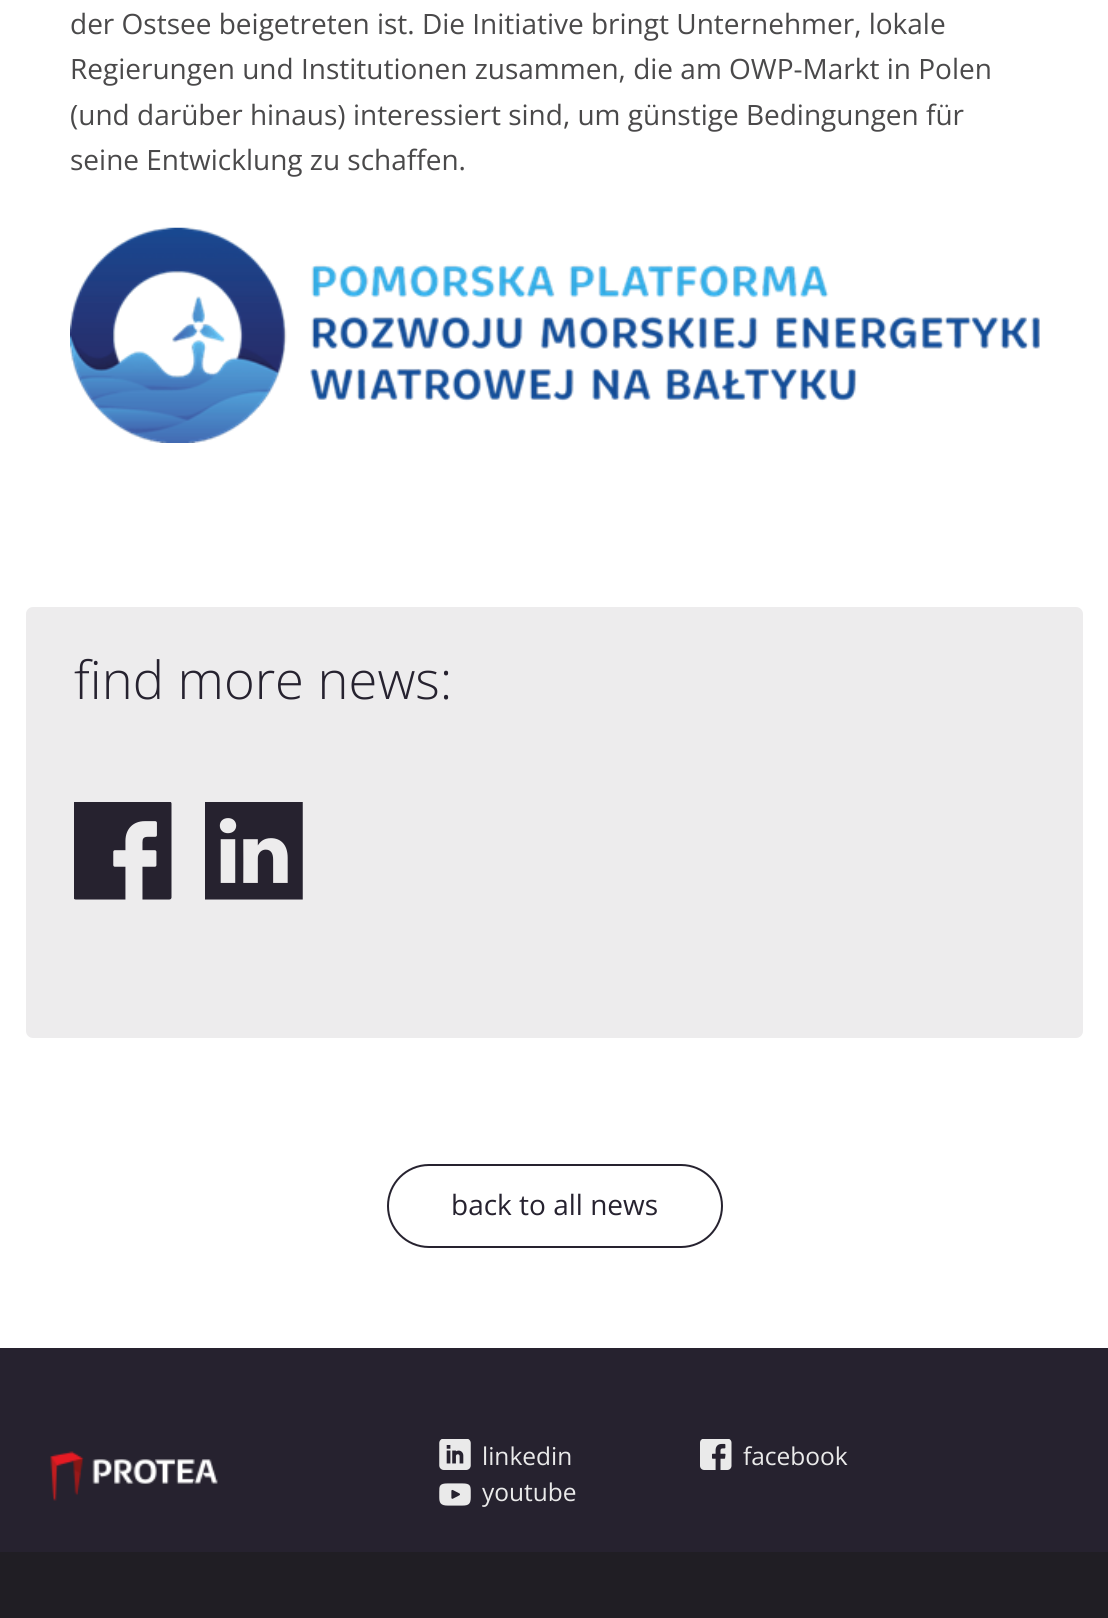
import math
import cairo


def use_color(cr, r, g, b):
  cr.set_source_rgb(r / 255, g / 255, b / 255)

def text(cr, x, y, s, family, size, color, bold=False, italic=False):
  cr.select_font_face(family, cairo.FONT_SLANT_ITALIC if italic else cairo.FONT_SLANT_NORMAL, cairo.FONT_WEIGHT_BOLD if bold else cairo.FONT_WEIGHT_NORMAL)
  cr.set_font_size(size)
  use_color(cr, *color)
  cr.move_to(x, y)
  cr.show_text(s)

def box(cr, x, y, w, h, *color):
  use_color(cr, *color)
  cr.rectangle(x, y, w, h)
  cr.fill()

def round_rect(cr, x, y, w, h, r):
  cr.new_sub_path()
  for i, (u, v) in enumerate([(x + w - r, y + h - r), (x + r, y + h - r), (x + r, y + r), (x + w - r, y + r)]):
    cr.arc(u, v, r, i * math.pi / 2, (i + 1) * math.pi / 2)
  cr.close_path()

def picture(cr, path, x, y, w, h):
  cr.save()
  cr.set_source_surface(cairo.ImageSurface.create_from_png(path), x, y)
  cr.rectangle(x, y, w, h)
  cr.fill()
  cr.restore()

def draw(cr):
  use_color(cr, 255, 255, 255)
  cr.paint()
  picture(cr, "img_01.png", 70, 227, 970, 216)
  use_color(cr, 237, 236, 237)
  round_rect(cr, 26, 607, 1057, 431, 7)
  cr.fill()
  picture(cr, "img_02.png", 74, 802, 98, 98)
  picture(cr, "img_03.png", 205, 802, 98, 98)
  round_rect(cr, 388, 1165, 334, 82, 41)
  use_color(cr, 38, 34, 47)
  cr.stroke()
  box(cr, 0, 1348, 1108, 204, 38, 34, 47)
  picture(cr, "img_04.png", 50, 1451, 168, 50)
  picture(cr, "img_05.png", 439, 1439, 32, 31)
  picture(cr, "img_06.png", 700, 1439, 32, 31)
  picture(cr, "img_07.png", 439, 1483, 32, 23)
  box(cr, 0, 1552, 1108, 66, 32, 30, 36)
  text(cr, 70, 34, "der Ostsee beigetreten ist. Die Initiative bringt Unternehmer, lokale", "Open Sans", 28, (74, 73, 74))
  text(cr, 70, 79, "Regierungen und Institutionen zusammen, die am OWP-Markt in Polen", "Open Sans", 28, (74, 73, 74))
  text(cr, 70, 125, "(und darüber hinaus) interessiert sind, um günstige Bedingungen für", "Open Sans", 28, (74, 73, 74))
  text(cr, 70, 170, "seine Entwicklung zu schaffen.", "Open Sans", 28, (74, 73, 74))
  text(cr, 74, 699, "find more news:", "Open Sans Light", 52.5, (38, 34, 47))
  text(cr, 451, 1215, "back to all news", "Open Sans", 28, (38, 34, 47))
  text(cr, 482, 1465, "linkedin", "Open Sans", 24.5, (234, 234, 234))
  text(cr, 743, 1465, "facebook", "Open Sans", 24.5, (234, 234, 234))
  text(cr, 482, 1501, "youtube", "Open Sans", 24.5, (234, 234, 234))


surface = cairo.ImageSurface(cairo.FORMAT_RGB24, 1108, 1618)
cr = cairo.Context(surface)
options = cairo.FontOptions()
options.set_hint_metrics(cairo.HINT_METRICS_OFF)
options.set_hint_style(cairo.HINT_STYLE_NONE)
cr.set_font_options(options)
cr.set_miter_limit(4)
draw(cr)
surface.write_to_png("out.png")
